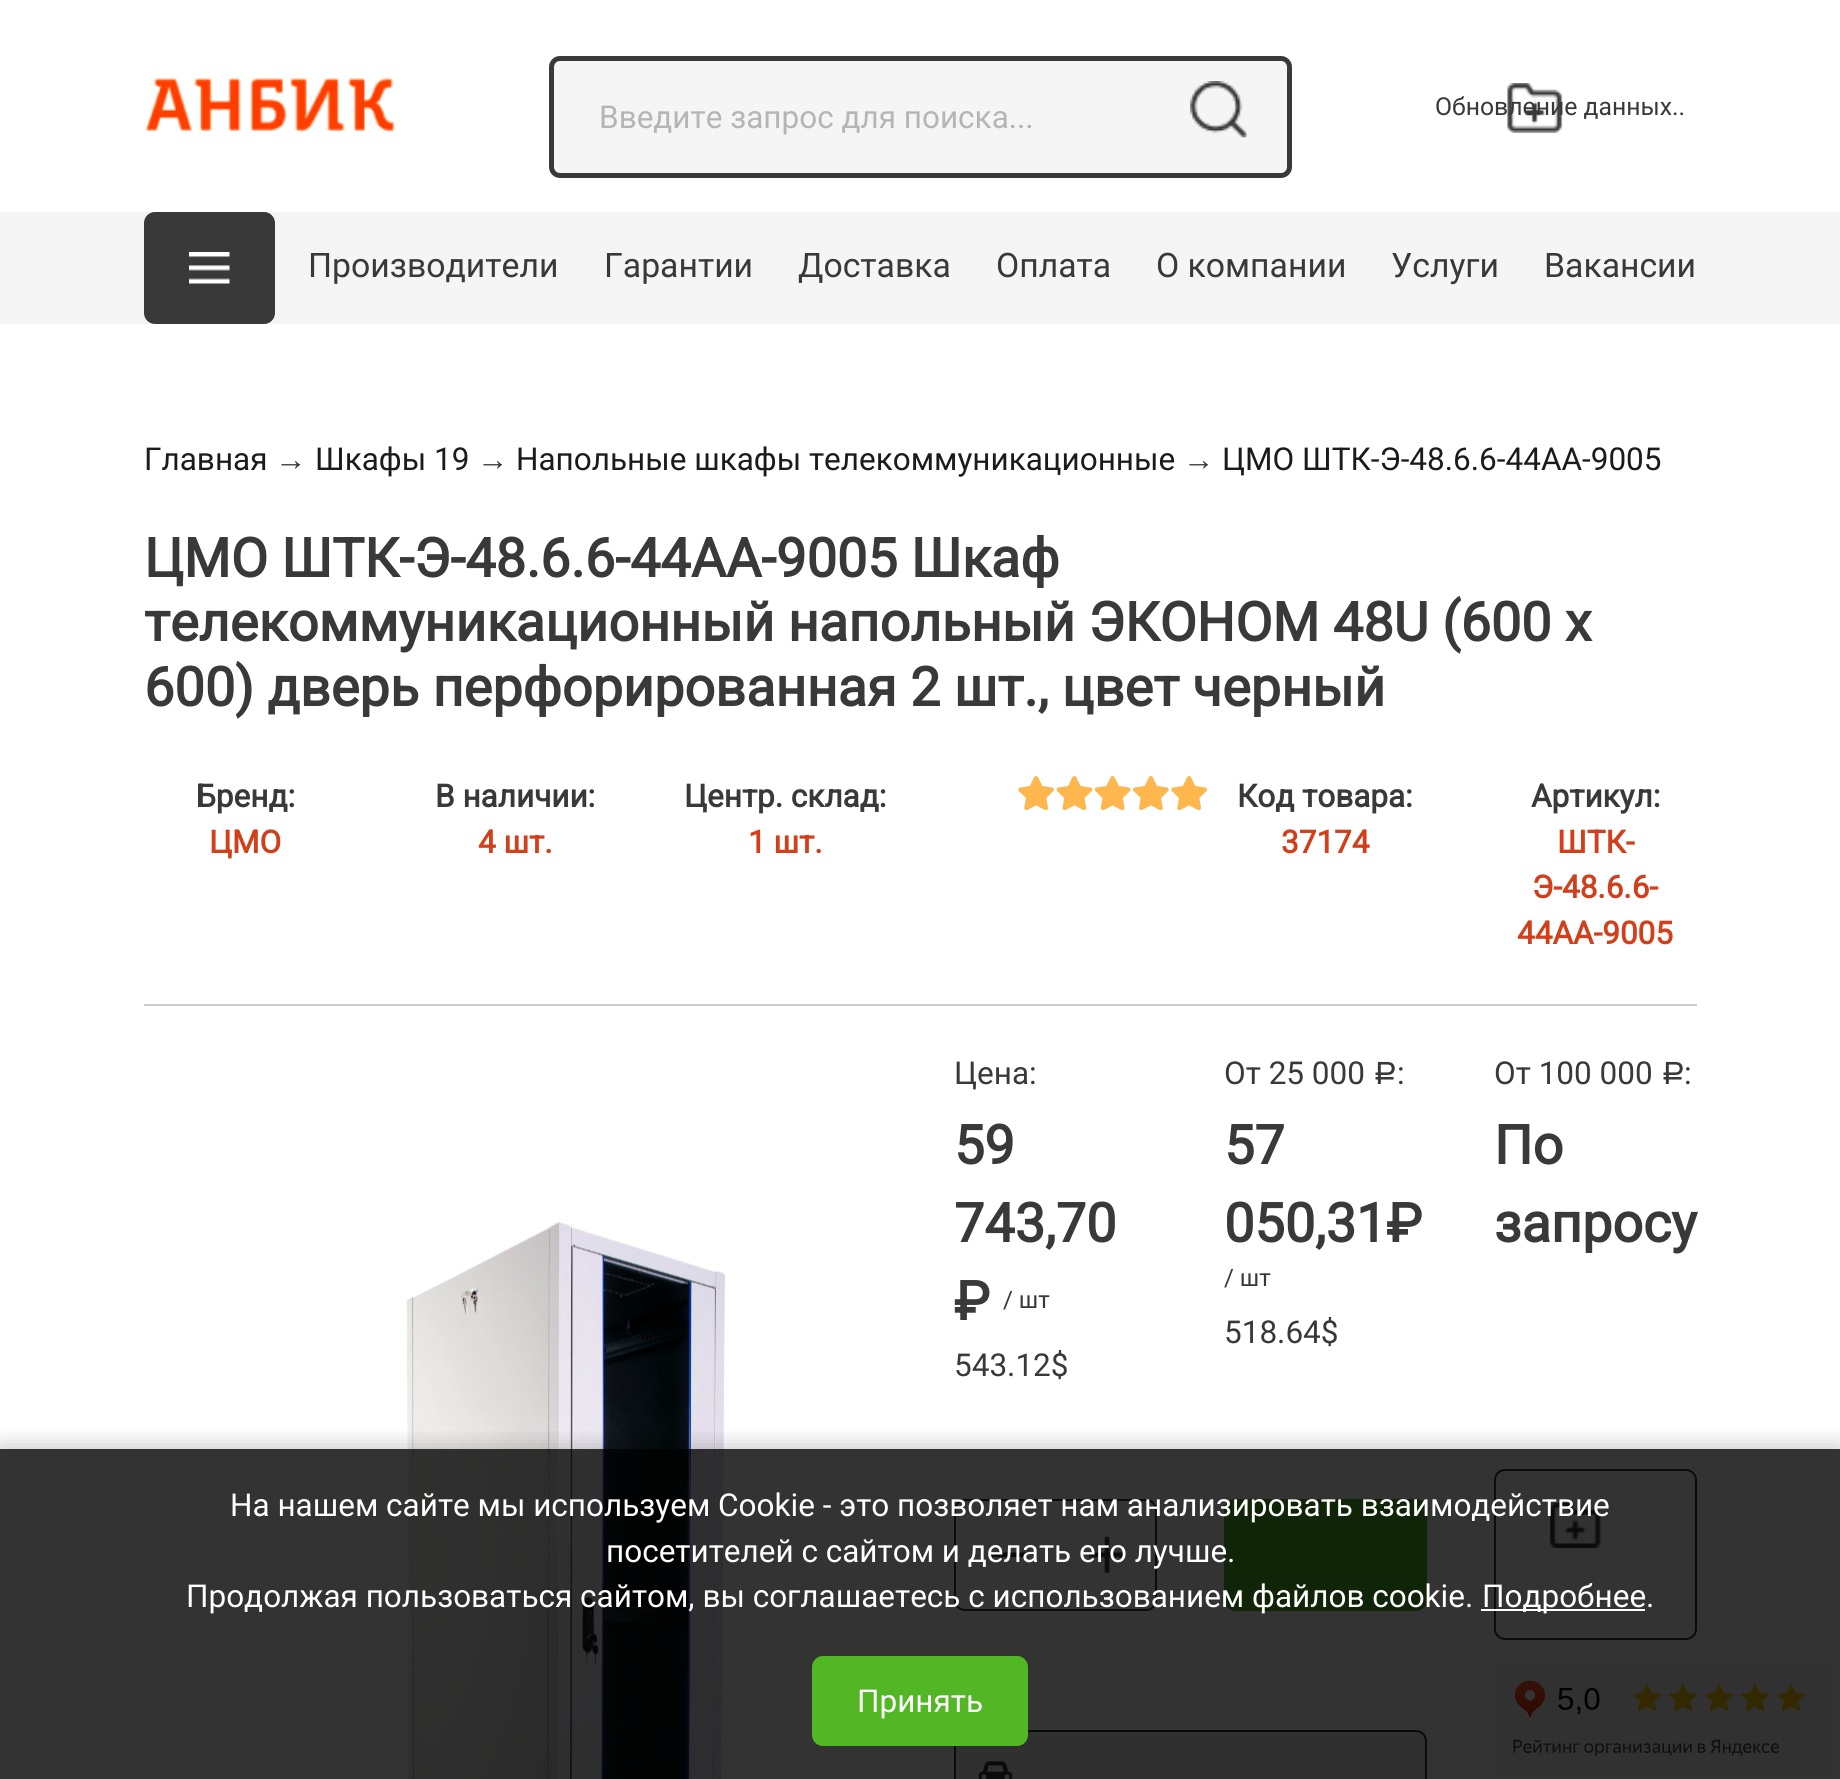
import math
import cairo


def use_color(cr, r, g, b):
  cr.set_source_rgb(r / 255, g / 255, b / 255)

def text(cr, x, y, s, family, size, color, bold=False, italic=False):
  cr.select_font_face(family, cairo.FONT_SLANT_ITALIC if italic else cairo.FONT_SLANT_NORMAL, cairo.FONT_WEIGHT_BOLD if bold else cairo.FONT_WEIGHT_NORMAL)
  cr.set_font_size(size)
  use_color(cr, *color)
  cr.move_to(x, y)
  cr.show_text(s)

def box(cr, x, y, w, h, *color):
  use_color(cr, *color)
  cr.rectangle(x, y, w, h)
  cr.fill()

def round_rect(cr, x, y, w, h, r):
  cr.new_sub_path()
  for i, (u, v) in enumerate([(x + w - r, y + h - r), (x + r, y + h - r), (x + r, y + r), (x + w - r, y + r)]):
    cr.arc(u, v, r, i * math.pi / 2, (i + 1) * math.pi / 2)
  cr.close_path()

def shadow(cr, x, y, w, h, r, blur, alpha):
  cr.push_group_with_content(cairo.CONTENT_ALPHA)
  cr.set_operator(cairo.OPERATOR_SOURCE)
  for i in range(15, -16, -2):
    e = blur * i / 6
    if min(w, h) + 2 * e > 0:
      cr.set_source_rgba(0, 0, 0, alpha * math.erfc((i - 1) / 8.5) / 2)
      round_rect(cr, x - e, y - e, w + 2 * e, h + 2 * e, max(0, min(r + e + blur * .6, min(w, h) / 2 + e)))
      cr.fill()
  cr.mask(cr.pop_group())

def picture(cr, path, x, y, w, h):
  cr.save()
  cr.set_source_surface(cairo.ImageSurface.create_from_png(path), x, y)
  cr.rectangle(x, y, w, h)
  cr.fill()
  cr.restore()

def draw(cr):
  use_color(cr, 255, 255, 255)
  cr.paint()
  box(cr, 0, 212, 1840, 112, 245, 245, 245)
  picture(cr, "img_01.png", 1507, 83, 56, 50)
  use_color(cr, 57, 57, 57)
  round_rect(cr, 144, 212, 131, 112, 11)
  cr.fill()
  picture(cr, "img_02.png", 189, 252, 41, 32)
  picture(cr, "img_03.png", 145, 77, 250, 56)
  use_color(cr, 245, 245, 245)
  round_rect(cr, 551.5, 58.5, 738, 117, 8.5)
  cr.fill_preserve()
  use_color(cr, 57, 57, 57)
  cr.set_line_width(5)
  cr.stroke()
  picture(cr, "img_04.png", 1190, 81, 57, 57)
  box(cr, 144, 1004, 1553, 2, 203, 203, 203)
  picture(cr, "img_05.png", 1018, 776, 36, 34)
  picture(cr, "img_06.png", 1056, 776, 36, 34)
  picture(cr, "img_07.png", 1095, 776, 36, 34)
  picture(cr, "img_08.png", 1133, 776, 36, 34)
  picture(cr, "img_05.png", 1171, 776, 36, 34)
  picture(cr, "img_09.png", 1018, 776, 36, 35)
  picture(cr, "img_10.png", 1056, 776, 37, 35)
  picture(cr, "img_11.png", 1094, 776, 37, 35)
  picture(cr, "img_12.png", 1133, 776, 36, 35)
  picture(cr, "img_09.png", 1171, 776, 36, 35)
  picture(cr, "img_13.png", 406, 1222, 319, 557)
  round_rect(cr, 955, 1500, 201, 110, 10)
  use_color(cr, 57, 57, 57)
  cr.set_line_width(2)
  cr.stroke()
  picture(cr, "img_14.png", 990, 1552, 36, 5)
  picture(cr, "img_15.png", 1089, 1536, 36, 37)
  use_color(cr, 82, 182, 37)
  round_rect(cr, 1224, 1499, 203, 112, 11)
  cr.fill()
  round_rect(cr, 1495, 1470, 201, 169, 10)
  use_color(cr, 57, 57, 57)
  cr.stroke()
  picture(cr, "img_16.png", 1550, 1503, 52, 45)
  use_color(cr, 238, 238, 238)
  round_rect(cr, 955, 1731, 471, 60, 10)
  cr.fill_preserve()
  use_color(cr, 57, 57, 57)
  cr.stroke()
  picture(cr, "img_17.png", 978, 1761, 35, 18)
  picture(cr, "img_18.png", 1494, 1663, 337, 112)
  cr.save()
  cr.rectangle(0, 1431, 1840, 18)
  cr.clip()
  use_color(cr, 0, 0, 0)
  shadow(cr, 0, 1445, 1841, 330, 0, 11, 0.2)
  cr.restore()
  cr.set_source_rgba(0, 0, 0, 0.8)
  cr.rectangle(0, 1449, 1840, 330)
  cr.fill()
  box(cr, 1481, 1609, 164, 2, 255, 255, 255)
  use_color(cr, 82, 182, 37)
  round_rect(cr, 812, 1656, 216, 90, 11)
  cr.fill()
  text(cr, 1435, 115, "Обновление данных..", "Roboto", 24.75, (57, 57, 57))
  text(cr, 308, 277, "Производители", "Roboto", 33.75, (57, 57, 57))
  text(cr, 604, 277, "Гарантии", "Roboto", 33.75, (57, 57, 57))
  text(cr, 798, 277, "Доставка", "Roboto", 33.75, (57, 57, 57))
  text(cr, 996, 277, "Оплата", "Roboto", 33.75, (57, 57, 57))
  text(cr, 1156, 277, "О компании", "Roboto", 33.75, (57, 57, 57))
  text(cr, 1391, 277, "Услуги", "Roboto", 33.75, (57, 57, 57))
  text(cr, 1544, 277, "Вакансии", "Roboto", 33.75, (57, 57, 57))
  text(cr, 599, 128, "Введите запрос для поиска...", "Roboto", 31.5, (181, 181, 181))
  text(cr, 144, 470, "Главная", "Roboto", 31.5, (28, 27, 28))
  text(cr, 275, 470, "→", "Liberation Sans", 31.5, (57, 57, 57))
  text(cr, 315, 470, "Шкафы 19", "Roboto", 31.5, (28, 27, 28))
  text(cr, 477, 470, "→", "Liberation Sans", 31.5, (57, 57, 57))
  text(cr, 516, 470, "Напольные шкафы телекоммуникационные", "Roboto", 31.5, (28, 27, 28))
  text(cr, 1183, 470, "→", "Liberation Sans", 31.5, (57, 57, 57))
  text(cr, 1222, 470, "ЦМО ШТК-Э-48.6.6-44АА-9005", "Roboto", 31.5, (28, 27, 28))
  text(cr, 144, 577, "ЦМО ШТК-Э-48.6.6-44АА-9005 Шкаф", "Roboto", 54, (57, 57, 57), bold=True)
  text(cr, 144, 641, "телекоммуникационный напольный ЭКОНОМ 48U (600 x", "Roboto", 54, (57, 57, 57), bold=True)
  text(cr, 144, 706, "600) дверь перфорированная 2 шт., цвет черный", "Roboto", 54, (57, 57, 57), bold=True)
  text(cr, 196, 807, "Бренд:", "Roboto", 31.5, (57, 57, 57), bold=True)
  text(cr, 209, 853, "ЦМО", "Roboto", 31.5, (209, 63, 27), bold=True)
  text(cr, 435, 807, "В наличии:", "Roboto", 31.5, (57, 57, 57), bold=True)
  text(cr, 478, 853, "4 шт.", "Roboto", 31.5, (209, 63, 27), bold=True)
  text(cr, 684, 807, "Центр. склад:", "Roboto", 31.5, (57, 57, 57), bold=True)
  text(cr, 748, 853, "1 шт.", "Roboto", 31.5, (209, 63, 27), bold=True)
  text(cr, 1237, 807, "Код товара:", "Roboto", 31.5, (57, 57, 57), bold=True)
  text(cr, 1281, 853, "37174", "Roboto", 31.5, (209, 63, 27), bold=True)
  text(cr, 1531, 807, "Артикул:", "Roboto", 31.5, (57, 57, 57), bold=True)
  text(cr, 1557, 853, "ШТК-", "Roboto", 31.5, (209, 63, 27), bold=True)
  text(cr, 1532, 898, "Э-48.6.6-", "Roboto", 31.5, (209, 63, 27), bold=True)
  text(cr, 1517, 944, "44АА-9005", "Roboto", 31.5, (209, 63, 27), bold=True)
  text(cr, 954, 1084, "Цена:", "Roboto", 31.5, (57, 57, 57))
  text(cr, 954, 1164, "59", "Roboto", 54, (57, 57, 57), bold=True)
  text(cr, 954, 1242, "743,70", "Roboto", 54, (57, 57, 57), bold=True)
  text(cr, 954, 1320, "₽", "Roboto", 54, (57, 57, 57), bold=True)
  text(cr, 1003, 1308, "/ шт", "Roboto", 24, (57, 57, 57))
  text(cr, 954, 1376, "543.12$", "Roboto", 31.5, (57, 57, 57))
  text(cr, 1224, 1084, "От 25 000", "Roboto", 31.5, (57, 57, 57))
  text(cr, 1373, 1084, "a", "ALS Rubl", 31.5, (57, 57, 57))
  text(cr, 1397, 1084, ":", "Roboto", 31.5, (57, 57, 57))
  text(cr, 1224, 1164, "57", "Roboto", 54, (57, 57, 57), bold=True)
  text(cr, 1224, 1242, "050,31₽", "Roboto", 54, (57, 57, 57), bold=True)
  text(cr, 1224, 1286, "/ шт", "Roboto", 24, (57, 57, 57))
  text(cr, 1224, 1343, "518.64$", "Roboto", 31.5, (57, 57, 57))
  text(cr, 1494, 1084, "От 100 000", "Roboto", 31.5, (57, 57, 57))
  text(cr, 1661, 1084, "a", "ALS Rubl", 31.5, (57, 57, 57))
  text(cr, 1684, 1084, ":", "Roboto", 31.5, (57, 57, 57))
  text(cr, 1494, 1164, "По", "Roboto", 54, (57, 57, 57), bold=True)
  text(cr, 1494, 1242, "запросу", "Roboto", 54, (57, 57, 57), bold=True)
  text(cr, 230, 1516, "На нашем сайте мы используем Cookie - это позволяет нам анализировать взаимодействие", "Roboto", 31.5, (255, 255, 255))
  text(cr, 606, 1562, "посетителей с сайтом и делать его лучше.", "Roboto", 31.5, (255, 255, 255))
  text(cr, 186, 1607, "Продолжая пользоваться сайтом, вы соглашаетесь с использованием файлов cookie.", "Roboto", 31.5, (255, 255, 255))
  text(cr, 1482, 1607, "Подробнее.", "Roboto", 31.5, (255, 255, 255))
  text(cr, 857, 1712, "Принять", "Roboto", 31.5, (255, 255, 255))


surface = cairo.ImageSurface(cairo.FORMAT_RGB24, 1840, 1779)
cr = cairo.Context(surface)
options = cairo.FontOptions()
options.set_hint_metrics(cairo.HINT_METRICS_OFF)
options.set_hint_style(cairo.HINT_STYLE_NONE)
cr.set_font_options(options)
cr.set_miter_limit(4)
draw(cr)
surface.write_to_png("out.png")
